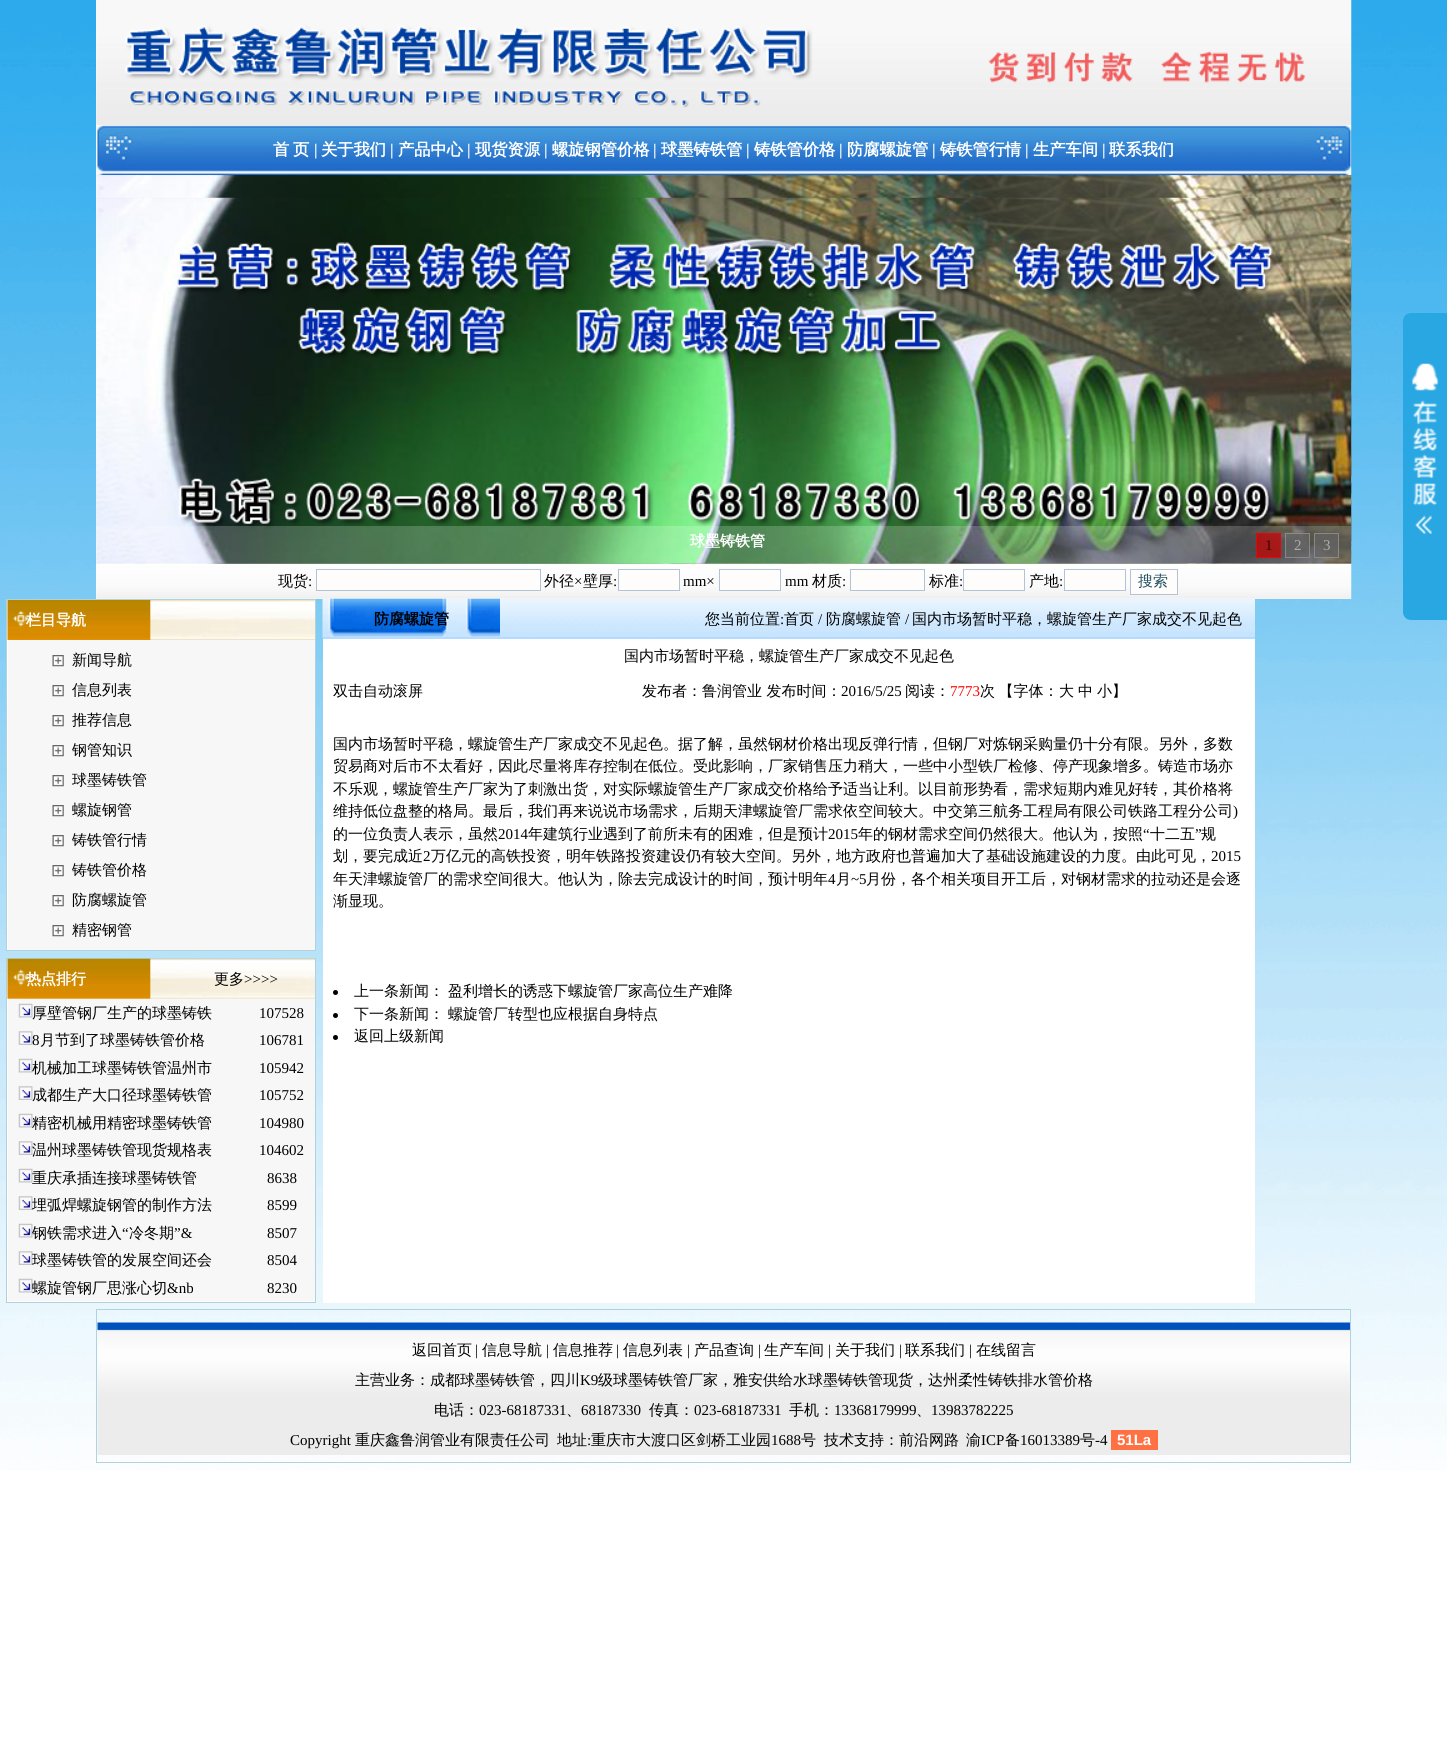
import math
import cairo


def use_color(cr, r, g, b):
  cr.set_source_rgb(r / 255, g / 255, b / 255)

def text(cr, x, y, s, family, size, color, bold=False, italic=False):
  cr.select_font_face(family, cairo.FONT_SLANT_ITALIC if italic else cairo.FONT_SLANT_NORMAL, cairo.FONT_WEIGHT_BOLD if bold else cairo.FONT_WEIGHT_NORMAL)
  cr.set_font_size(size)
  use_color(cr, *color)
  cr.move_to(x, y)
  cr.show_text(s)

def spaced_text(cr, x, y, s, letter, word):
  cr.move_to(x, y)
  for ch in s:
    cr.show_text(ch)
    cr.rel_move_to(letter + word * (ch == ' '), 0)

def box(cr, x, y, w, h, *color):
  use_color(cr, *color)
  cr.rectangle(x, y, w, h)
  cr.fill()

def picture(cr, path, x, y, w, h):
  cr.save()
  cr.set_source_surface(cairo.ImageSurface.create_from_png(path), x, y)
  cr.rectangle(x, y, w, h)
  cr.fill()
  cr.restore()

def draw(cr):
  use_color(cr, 255, 255, 255)
  cr.paint()
  picture(cr, "img_01.png", 0, 0, 1447, 1471)
  box(cr, 96, 0, 1255, 599, 255, 255, 255)
  picture(cr, "img_02.png", 96, 0, 1256, 125)
  picture(cr, "img_03.png", 96, 125, 1256, 50)
  picture(cr, "img_04.png", 96, 175, 1256, 389)
  picture(cr, "img_06.png", 96, 563, 1256, 36)
  picture(cr, "img_05.png", 96, 197, 1256, 367)
  cr.set_source_rgba(1, 1, 1, 0.2)
  cr.rectangle(96, 526, 1255, 38)
  cr.fill()
  cr.set_source_rgba(0.8, 0, 0, 0.7)
  cr.rectangle(1256, 533, 25, 25)
  cr.fill()
  cr.rectangle(1256.5, 533.5, 24, 24)
  cr.set_source_rgba(1, 0, 0, 0.7)
  cr.set_line_width(1)
  cr.stroke()
  cr.set_source_rgba(0.4, 0.4, 0.4, 0.7)
  cr.rectangle(1285, 533, 25, 25)
  cr.fill()
  cr.rectangle(1285.5, 533.5, 24, 24)
  cr.set_source_rgba(0.6, 0.6, 0.6, 0.7)
  cr.stroke()
  cr.set_source_rgba(0.4, 0.4, 0.4, 0.7)
  cr.rectangle(1314, 533, 25, 25)
  cr.fill()
  cr.rectangle(1314.5, 533.5, 24, 24)
  cr.set_source_rgba(0.6, 0.6, 0.6, 0.7)
  cr.stroke()
  use_color(cr, 255, 253, 251)
  cr.rectangle(316.5, 569.5, 224, 21)
  cr.fill_preserve()
  use_color(cr, 178, 194, 215)
  cr.stroke()
  use_color(cr, 255, 253, 251)
  cr.rectangle(618.5, 569.5, 61, 21)
  cr.fill_preserve()
  use_color(cr, 178, 194, 215)
  cr.stroke()
  use_color(cr, 255, 253, 251)
  cr.rectangle(719.5, 569.5, 61, 21)
  cr.fill_preserve()
  use_color(cr, 178, 194, 215)
  cr.stroke()
  use_color(cr, 255, 253, 251)
  cr.rectangle(850.5, 569.5, 74, 21)
  cr.fill_preserve()
  use_color(cr, 178, 194, 215)
  cr.stroke()
  use_color(cr, 255, 253, 251)
  cr.rectangle(963.5, 569.5, 61, 21)
  cr.fill_preserve()
  use_color(cr, 178, 194, 215)
  cr.stroke()
  use_color(cr, 255, 253, 251)
  cr.rectangle(1064.5, 569.5, 61, 21)
  cr.fill_preserve()
  use_color(cr, 178, 194, 215)
  cr.stroke()
  use_color(cr, 255, 253, 251)
  cr.rectangle(1130.5, 569.5, 47, 25)
  cr.fill_preserve()
  use_color(cr, 178, 194, 215)
  cr.stroke()
  use_color(cr, 41, 167, 226)
  cr.new_path()
  cr.move_to(1411, 313)
  cr.line_to(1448, 313)
  cr.line_to(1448, 620)
  cr.line_to(1411, 620)
  cr.curve_to(1406.5, 620, 1403, 616.5, 1403, 612)
  cr.line_to(1403, 321)
  cr.curve_to(1403, 316.5, 1406.5, 313, 1411, 313)
  cr.close_path()
  cr.fill()
  picture(cr, "img_07.png", 1411, 363, 28, 171)
  box(cr, 7, 600, 1, 350, 255, 255, 255)
  cr.rectangle(6.5, 599.5, 309, 351)
  use_color(cr, 176, 210, 220)
  cr.stroke()
  picture(cr, "img_08.png", 7, 600, 308, 40)
  box(cr, 8, 640, 307, 310, 247, 247, 247)
  picture(cr, "img_09.png", 52, 655, 12, 12)
  picture(cr, "img_09.png", 52, 685, 12, 12)
  picture(cr, "img_09.png", 52, 715, 12, 12)
  picture(cr, "img_09.png", 52, 745, 12, 12)
  picture(cr, "img_09.png", 52, 775, 12, 12)
  picture(cr, "img_09.png", 52, 805, 12, 12)
  picture(cr, "img_09.png", 52, 835, 12, 12)
  picture(cr, "img_09.png", 52, 865, 12, 12)
  picture(cr, "img_09.png", 52, 895, 12, 12)
  picture(cr, "img_09.png", 52, 925, 12, 12)
  use_color(cr, 255, 255, 255)
  cr.rectangle(6.5, 958.5, 309, 344)
  cr.fill_preserve()
  use_color(cr, 176, 210, 220)
  cr.stroke()
  picture(cr, "img_10.png", 7, 958, 308, 41)
  box(cr, 8, 999, 307, 302, 247, 247, 247)
  picture(cr, "img_11.png", 18, 1003, 15, 15)
  picture(cr, "img_12.png", 18, 1031, 15, 14)
  picture(cr, "img_11.png", 18, 1058, 15, 15)
  picture(cr, "img_12.png", 18, 1086, 15, 14)
  picture(cr, "img_11.png", 18, 1113, 15, 15)
  picture(cr, "img_12.png", 18, 1141, 15, 14)
  picture(cr, "img_13.png", 18, 1168, 15, 15)
  picture(cr, "img_12.png", 18, 1196, 15, 14)
  picture(cr, "img_11.png", 18, 1223, 15, 15)
  picture(cr, "img_12.png", 18, 1251, 15, 14)
  picture(cr, "img_11.png", 18, 1278, 15, 15)
  box(cr, 323, 638, 932, 665, 255, 255, 255)
  picture(cr, "img_14.png", 322, 598, 178, 41)
  picture(cr, "img_15.png", 500, 599, 755, 40)
  use_color(cr, 0, 0, 0)
  cr.arc(335.5, 992.5, 2.5, 0, 2 * math.pi)
  cr.fill()
  cr.arc(335.5, 1015.5, 2.5, 0, 2 * math.pi)
  cr.fill()
  cr.arc(335.5, 1037.5, 2.5, 0, 2 * math.pi)
  cr.fill()
  cr.rectangle(96.5, 1309.5, 1254, 153)
  use_color(cr, 176, 210, 220)
  cr.stroke()
  picture(cr, "img_16.png", 97, 1322, 1253, 133)
  box(cr, 1111, 1430, 47, 20, 255, 112, 67)
  text(cr, 273, 155, "首", "WenQuanYi Zen Hei", 16.25, (255, 255, 255), bold=True)
  text(cr, 293, 155, "页", "WenQuanYi Zen Hei", 16.25, (255, 255, 255), bold=True)
  text(cr, 314, 155, "|", "Liberation Serif", 16.25, (255, 255, 255), bold=True)
  text(cr, 321, 155, "关于我们", "WenQuanYi Zen Hei", 16.25, (255, 255, 255), bold=True)
  text(cr, 390, 155, "|", "Liberation Serif", 16.25, (255, 255, 255), bold=True)
  text(cr, 398, 155, "产品中心", "WenQuanYi Zen Hei", 16.25, (255, 255, 255), bold=True)
  text(cr, 467, 155, "|", "Liberation Serif", 16.25, (255, 255, 255), bold=True)
  text(cr, 475, 155, "现货资源", "WenQuanYi Zen Hei", 16.25, (255, 255, 255), bold=True)
  text(cr, 544, 155, "|", "Liberation Serif", 16.25, (255, 255, 255), bold=True)
  text(cr, 552, 155, "螺旋钢管价格", "WenQuanYi Zen Hei", 16.25, (255, 255, 255), bold=True)
  text(cr, 653, 155, "|", "Liberation Serif", 16.25, (255, 255, 255), bold=True)
  text(cr, 661, 155, "球墨铸铁管", "WenQuanYi Zen Hei", 16.25, (255, 255, 255), bold=True)
  text(cr, 746, 155, "|", "Liberation Serif", 16.25, (255, 255, 255), bold=True)
  text(cr, 754, 155, "铸铁管价格", "WenQuanYi Zen Hei", 16.25, (255, 255, 255), bold=True)
  text(cr, 839, 155, "|", "Liberation Serif", 16.25, (255, 255, 255), bold=True)
  text(cr, 847, 155, "防腐螺旋管", "WenQuanYi Zen Hei", 16.25, (255, 255, 255), bold=True)
  text(cr, 932, 155, "|", "Liberation Serif", 16.25, (255, 255, 255), bold=True)
  text(cr, 940, 155, "铸铁管行情", "WenQuanYi Zen Hei", 16.25, (255, 255, 255), bold=True)
  text(cr, 1025, 155, "|", "Liberation Serif", 16.25, (255, 255, 255), bold=True)
  text(cr, 1033, 155, "生产车间", "WenQuanYi Zen Hei", 16.25, (255, 255, 255), bold=True)
  text(cr, 1102, 155, "|", "Liberation Serif", 16.25, (255, 255, 255), bold=True)
  text(cr, 1109, 155, "联系我们", "WenQuanYi Zen Hei", 16.25, (255, 255, 255), bold=True)
  text(cr, 690, 546, "球墨铸铁管", "WenQuanYi Zen Hei", 15, (255, 255, 255), bold=True)
  text(cr, 1265, 550, "1", "Liberation Serif", 15, (50, 7, 7))
  text(cr, 1294, 550, "2", "Liberation Serif", 15, (172, 172, 173))
  text(cr, 1323, 550, "3", "Liberation Serif", 15, (172, 172, 173))
  text(cr, 278, 586, "现货", "WenQuanYi Zen Hei Medium", 15, (0, 0, 0))
  text(cr, 308, 586, ":", "Liberation Serif", 15, (0, 0, 0))
  text(cr, 544, 586, "外径", "WenQuanYi Zen Hei Medium", 15, (0, 0, 0))
  text(cr, 574, 586, "×", "Liberation Serif", 15, (0, 0, 0))
  text(cr, 583, 586, "壁厚", "WenQuanYi Zen Hei Medium", 15, (0, 0, 0))
  text(cr, 613, 586, ":", "Liberation Serif", 15, (0, 0, 0))
  text(cr, 683, 586, "mm×", "Liberation Serif", 15, (0, 0, 0))
  text(cr, 785, 586, "mm", "Liberation Serif", 15, (0, 0, 0))
  text(cr, 812, 586, "材质", "WenQuanYi Zen Hei Medium", 15, (0, 0, 0))
  text(cr, 842, 586, ":", "Liberation Serif", 15, (0, 0, 0))
  text(cr, 929, 586, "标准", "WenQuanYi Zen Hei Medium", 15, (0, 0, 0))
  text(cr, 959, 586, ":", "Liberation Serif", 15, (0, 0, 0))
  text(cr, 1029, 586, "产地", "WenQuanYi Zen Hei Medium", 15, (0, 0, 0))
  text(cr, 1059, 586, ":", "Liberation Serif", 15, (0, 0, 0))
  text(cr, 1138, 586, "搜索", "WenQuanYi Zen Hei Medium", 15, (32, 80, 100))
  text(cr, 26, 625, "栏目导航", "WenQuanYi Zen Hei", 15, (255, 255, 255), bold=True)
  text(cr, 72, 665, "新闻导航", "WenQuanYi Zen Hei Medium", 15, (0, 0, 0))
  text(cr, 72, 695, "信息列表", "WenQuanYi Zen Hei Medium", 15, (0, 0, 0))
  text(cr, 72, 725, "推荐信息", "WenQuanYi Zen Hei Medium", 15, (0, 0, 0))
  text(cr, 72, 755, "钢管知识", "WenQuanYi Zen Hei Medium", 15, (0, 0, 0))
  text(cr, 72, 785, "球墨铸铁管", "WenQuanYi Zen Hei Medium", 15, (0, 0, 0))
  text(cr, 72, 815, "螺旋钢管", "WenQuanYi Zen Hei Medium", 15, (0, 0, 0))
  text(cr, 72, 845, "铸铁管行情", "WenQuanYi Zen Hei Medium", 15, (0, 0, 0))
  text(cr, 72, 875, "铸铁管价格", "WenQuanYi Zen Hei Medium", 15, (0, 0, 0))
  text(cr, 72, 905, "防腐螺旋管", "WenQuanYi Zen Hei Medium", 15, (0, 0, 0))
  text(cr, 72, 935, "精密钢管", "WenQuanYi Zen Hei Medium", 15, (0, 0, 0))
  text(cr, 26, 984, "热点排行", "WenQuanYi Zen Hei", 15, (255, 255, 255), bold=True)
  text(cr, 214, 984, "更多", "WenQuanYi Zen Hei Medium", 15, (0, 0, 0))
  text(cr, 244, 984, ">>>>", "Liberation Serif", 15, (0, 0, 0))
  text(cr, 32, 1018, "厚壁管钢厂生产的球墨铸铁", "WenQuanYi Zen Hei Medium", 15, (0, 0, 0))
  text(cr, 259, 1018, "107528", "Liberation Serif", 15, (0, 0, 0))
  text(cr, 32, 1045, "8", "Liberation Serif", 15, (0, 0, 0))
  text(cr, 40, 1045, "月节到了球墨铸铁管价格", "WenQuanYi Zen Hei Medium", 15, (0, 0, 0))
  text(cr, 259, 1045, "106781", "Liberation Serif", 15, (0, 0, 0))
  text(cr, 32, 1073, "机械加工球墨铸铁管温州市", "WenQuanYi Zen Hei Medium", 15, (0, 0, 0))
  text(cr, 259, 1073, "105942", "Liberation Serif", 15, (0, 0, 0))
  text(cr, 32, 1100, "成都生产大口径球墨铸铁管", "WenQuanYi Zen Hei Medium", 15, (0, 0, 0))
  text(cr, 259, 1100, "105752", "Liberation Serif", 15, (0, 0, 0))
  text(cr, 32, 1128, "精密机械用精密球墨铸铁管", "WenQuanYi Zen Hei Medium", 15, (0, 0, 0))
  text(cr, 259, 1128, "104980", "Liberation Serif", 15, (0, 0, 0))
  text(cr, 32, 1155, "温州球墨铸铁管现货规格表", "WenQuanYi Zen Hei Medium", 15, (0, 0, 0))
  text(cr, 259, 1155, "104602", "Liberation Serif", 15, (0, 0, 0))
  text(cr, 32, 1183, "重庆承插连接球墨铸铁管", "WenQuanYi Zen Hei Medium", 15, (0, 0, 0))
  text(cr, 267, 1183, "8638", "Liberation Serif", 15, (0, 0, 0))
  text(cr, 32, 1210, "埋弧焊螺旋钢管的制作方法", "WenQuanYi Zen Hei Medium", 15, (0, 0, 0))
  text(cr, 267, 1210, "8599", "Liberation Serif", 15, (0, 0, 0))
  text(cr, 32, 1238, "钢铁需求进入", "WenQuanYi Zen Hei Medium", 15, (0, 0, 0))
  text(cr, 122, 1238, "“", "Liberation Serif", 15, (0, 0, 0))
  text(cr, 129, 1238, "冷冬期", "WenQuanYi Zen Hei Medium", 15, (0, 0, 0))
  text(cr, 174, 1238, "”&", "Liberation Serif", 15, (0, 0, 0))
  text(cr, 267, 1238, "8507", "Liberation Serif", 15, (0, 0, 0))
  text(cr, 32, 1265, "球墨铸铁管的发展空间还会", "WenQuanYi Zen Hei Medium", 15, (0, 0, 0))
  text(cr, 267, 1265, "8504", "Liberation Serif", 15, (0, 0, 0))
  text(cr, 32, 1293, "螺旋管钢厂思涨心切", "WenQuanYi Zen Hei Medium", 15, (0, 0, 0))
  text(cr, 167, 1293, "&nb", "Liberation Serif", 15, (0, 0, 0))
  text(cr, 267, 1293, "8230", "Liberation Serif", 15, (0, 0, 0))
  text(cr, 374, 624, "防腐螺旋管", "WenQuanYi Zen Hei", 15, (0, 0, 0), bold=True)
  text(cr, 705, 624, "您当前位置", "WenQuanYi Zen Hei Medium", 15, (0, 0, 0))
  text(cr, 780, 624, ":", "Liberation Serif", 15, (0, 0, 0))
  text(cr, 784, 624, "首页", "WenQuanYi Zen Hei Medium", 15, (0, 0, 0))
  text(cr, 818, 624, "/", "Liberation Serif", 15, (0, 0, 0))
  text(cr, 826, 624, "防腐螺旋管", "WenQuanYi Zen Hei Medium", 15, (0, 0, 0))
  text(cr, 905, 624, "/", "Liberation Serif", 15, (0, 0, 0))
  text(cr, 912, 624, "国内市场暂时平稳，螺旋管生产厂家成交不见起色", "WenQuanYi Zen Hei Medium", 15, (0, 0, 0))
  text(cr, 624, 661, "国内市场暂时平稳，螺旋管生产厂家成交不见起色", "WenQuanYi Zen Hei Medium", 15, (0, 0, 0))
  text(cr, 333, 696, "双击自动滚屏", "WenQuanYi Zen Hei Medium", 15, (0, 0, 0))
  text(cr, 642, 696, "发布者：鲁润管业 发布时间：", "WenQuanYi Zen Hei Medium", 15, (0, 0, 0))
  text(cr, 841, 696, "2016/5/25", "Liberation Serif", 15, (0, 0, 0))
  text(cr, 905, 696, "阅读：", "WenQuanYi Zen Hei Medium", 15, (0, 0, 0))
  text(cr, 950, 696, "7773", "Liberation Serif", 15, (255, 0, 0))
  cr.select_font_face("WenQuanYi Zen Hei Medium")
  use_color(cr, 0, 0, 0)
  spaced_text(cr, 980, 696, "次 【字体：", 0, -1)
  text(cr, 1059, 696, "大", "WenQuanYi Zen Hei Medium", 15, (0, 0, 0))
  text(cr, 1078, 696, "中", "WenQuanYi Zen Hei Medium", 15, (0, 0, 0))
  text(cr, 1097, 696, "小】", "WenQuanYi Zen Hei Medium", 15, (0, 0, 0))
  text(cr, 333, 749, "国内市场暂时平稳，螺旋管生产厂家成交不见起色。据了解，虽然钢材价格出现反弹行情，但钢厂对炼钢采购量仍十分有限。另外，多数", "WenQuanYi Zen Hei Medium", 15, (0, 0, 0))
  text(cr, 333, 771, "贸易商对后市不太看好，因此尽量将库存控制在低位。受此影响，厂家销售压力稍大，一些中小型铁厂检修、停产现象增多。铸造市场亦", "WenQuanYi Zen Hei Medium", 15, (0, 0, 0))
  text(cr, 333, 794, "不乐观，螺旋管生产厂家为了刺激出货，对实际螺旋管生产厂家成交价格给予适当让利。以目前形势看，需求短期内难见好转，其价格将", "WenQuanYi Zen Hei Medium", 15, (0, 0, 0))
  text(cr, 333, 816, "维持低位盘整的格局。最后，我们再来说说市场需求，后期天津螺旋管厂需求依空间较大。中交第三航务工程局有限公司铁路工程分公司", "WenQuanYi Zen Hei Medium", 15, (0, 0, 0))
  text(cr, 1233, 816, ")", "Liberation Serif", 15, (0, 0, 0))
  text(cr, 333, 839, "的一位负责人表示，虽然", "WenQuanYi Zen Hei Medium", 15, (0, 0, 0))
  text(cr, 498, 839, "2014", "Liberation Serif", 15, (0, 0, 0))
  text(cr, 528, 839, "年建筑行业遇到了前所未有的困难，但是预计", "WenQuanYi Zen Hei Medium", 15, (0, 0, 0))
  text(cr, 828, 839, "2015", "Liberation Serif", 15, (0, 0, 0))
  text(cr, 858, 839, "年的钢材需求空间仍然很大。他认为，按照", "WenQuanYi Zen Hei Medium", 15, (0, 0, 0))
  text(cr, 1143, 839, "“", "Liberation Serif", 15, (0, 0, 0))
  text(cr, 1150, 839, "十二五", "WenQuanYi Zen Hei Medium", 15, (0, 0, 0))
  text(cr, 1195, 839, "”", "Liberation Serif", 15, (0, 0, 0))
  text(cr, 1201, 839, "规", "WenQuanYi Zen Hei Medium", 15, (0, 0, 0))
  text(cr, 333, 861, "划，要完成近", "WenQuanYi Zen Hei Medium", 15, (0, 0, 0))
  text(cr, 423, 861, "2", "Liberation Serif", 15, (0, 0, 0))
  text(cr, 431, 861, "万亿元的高铁投资，明年铁路投资建设仍有较大空间。另外，地方政府也普遍加大了基础设施建设的力度。由此可见，", "WenQuanYi Zen Hei Medium", 15, (0, 0, 0))
  text(cr, 1211, 861, "2015", "Liberation Serif", 15, (0, 0, 0))
  text(cr, 333, 884, "年天津螺旋管厂的需求空间很大。他认为，除去完成设计的时间，预计明年", "WenQuanYi Zen Hei Medium", 15, (0, 0, 0))
  text(cr, 828, 884, "4", "Liberation Serif", 15, (0, 0, 0))
  text(cr, 836, 884, "月", "WenQuanYi Zen Hei Medium", 15, (0, 0, 0))
  text(cr, 851, 884, "~5", "Liberation Serif", 15, (0, 0, 0))
  text(cr, 866, 884, "月份，各个相关项目开工后，对钢材需求的拉动还是会逐", "WenQuanYi Zen Hei Medium", 15, (0, 0, 0))
  text(cr, 333, 906, "渐显现。", "WenQuanYi Zen Hei Medium", 15, (0, 0, 0))
  text(cr, 354, 996, "上一条新闻：", "WenQuanYi Zen Hei Medium", 15, (0, 0, 0))
  text(cr, 448, 996, "盈利增长的诱惑下螺旋管厂家高位生产难降", "WenQuanYi Zen Hei Medium", 15, (0, 0, 0))
  text(cr, 354, 1019, "下一条新闻：", "WenQuanYi Zen Hei Medium", 15, (0, 0, 0))
  text(cr, 448, 1019, "螺旋管厂转型也应根据自身特点", "WenQuanYi Zen Hei Medium", 15, (0, 0, 0))
  text(cr, 354, 1041, "返回上级新闻", "WenQuanYi Zen Hei Medium", 15, (0, 0, 0))
  text(cr, 412, 1355, "返回首页", "WenQuanYi Zen Hei Medium", 15, (0, 0, 0))
  text(cr, 475, 1355, "|", "Liberation Serif", 15, (0, 0, 0))
  text(cr, 482, 1355, "信息导航", "WenQuanYi Zen Hei Medium", 15, (0, 0, 0))
  text(cr, 546, 1355, "|", "Liberation Serif", 15, (0, 0, 0))
  text(cr, 553, 1355, "信息推荐", "WenQuanYi Zen Hei Medium", 15, (0, 0, 0))
  text(cr, 616, 1355, "|", "Liberation Serif", 15, (0, 0, 0))
  text(cr, 623, 1355, "信息列表", "WenQuanYi Zen Hei Medium", 15, (0, 0, 0))
  text(cr, 687, 1355, "|", "Liberation Serif", 15, (0, 0, 0))
  text(cr, 694, 1355, "产品查询", "WenQuanYi Zen Hei Medium", 15, (0, 0, 0))
  text(cr, 758, 1355, "|", "Liberation Serif", 15, (0, 0, 0))
  text(cr, 764, 1355, "生产车间", "WenQuanYi Zen Hei Medium", 15, (0, 0, 0))
  text(cr, 828, 1355, "|", "Liberation Serif", 15, (0, 0, 0))
  text(cr, 835, 1355, "关于我们", "WenQuanYi Zen Hei Medium", 15, (0, 0, 0))
  text(cr, 899, 1355, "|", "Liberation Serif", 15, (0, 0, 0))
  text(cr, 905, 1355, "联系我们", "WenQuanYi Zen Hei Medium", 15, (0, 0, 0))
  text(cr, 969, 1355, "|", "Liberation Serif", 15, (0, 0, 0))
  text(cr, 976, 1355, "在线留言", "WenQuanYi Zen Hei Medium", 15, (0, 0, 0))
  text(cr, 355, 1385, "主营业务：成都球墨铸铁管，四川", "WenQuanYi Zen Hei Medium", 15, (0, 0, 0))
  text(cr, 580, 1385, "K9", "Liberation Serif", 15, (0, 0, 0))
  text(cr, 598, 1385, "级球墨铸铁管厂家，雅安供给水球墨铸铁管现货，达州柔性铸铁排水管价格", "WenQuanYi Zen Hei Medium", 15, (0, 0, 0))
  text(cr, 434, 1415, "电话：", "WenQuanYi Zen Hei Medium", 15, (0, 0, 0))
  text(cr, 479, 1415, "023-68187331", "Liberation Serif", 15, (0, 0, 0))
  text(cr, 566, 1415, "、", "WenQuanYi Zen Hei Medium", 15, (0, 0, 0))
  text(cr, 581, 1415, "68187330", "Liberation Serif", 15, (0, 0, 0))
  text(cr, 649, 1415, "传真：", "WenQuanYi Zen Hei Medium", 15, (0, 0, 0))
  text(cr, 694, 1415, "023-68187331", "Liberation Serif", 15, (0, 0, 0))
  text(cr, 789, 1415, "手机：", "WenQuanYi Zen Hei Medium", 15, (0, 0, 0))
  text(cr, 834, 1415, "13368179999", "Liberation Serif", 15, (0, 0, 0))
  text(cr, 916, 1415, "、", "WenQuanYi Zen Hei Medium", 15, (0, 0, 0))
  text(cr, 931, 1415, "13983782225", "Liberation Serif", 15, (0, 0, 0))
  text(cr, 290, 1445, "Copyright", "Liberation Serif", 15, (0, 0, 0))
  text(cr, 355, 1445, "重庆鑫鲁润管业有限责任公司", "WenQuanYi Zen Hei Medium", 15, (0, 0, 0))
  text(cr, 557, 1445, "地址", "WenQuanYi Zen Hei Medium", 15, (0, 0, 0))
  text(cr, 587, 1445, ":", "Liberation Serif", 15, (0, 0, 0))
  text(cr, 591, 1445, "重庆市大渡口区剑桥工业园", "WenQuanYi Zen Hei Medium", 15, (0, 0, 0))
  text(cr, 771, 1445, "1688", "Liberation Serif", 15, (0, 0, 0))
  text(cr, 801, 1445, "号", "WenQuanYi Zen Hei Medium", 15, (0, 0, 0))
  text(cr, 824, 1445, "技术支持：前沿网路", "WenQuanYi Zen Hei Medium", 15, (0, 0, 0))
  text(cr, 966, 1445, "渝", "WenQuanYi Zen Hei Medium", 15, (0, 0, 0))
  text(cr, 981, 1445, "ICP", "Liberation Serif", 15, (0, 0, 0))
  text(cr, 1005, 1445, "备", "WenQuanYi Zen Hei Medium", 15, (0, 0, 0))
  text(cr, 1020, 1445, "16013389", "Liberation Serif", 15, (0, 0, 0))
  text(cr, 1080, 1445, "号", "WenQuanYi Zen Hei Medium", 15, (0, 0, 0))
  text(cr, 1095, 1445, "-4", "Liberation Serif", 15, (0, 0, 0))
  text(cr, 1117, 1445, "51La", "Liberation Sans", 15, (255, 255, 255), bold=True)


surface = cairo.ImageSurface(cairo.FORMAT_RGB24, 1447, 1759)
cr = cairo.Context(surface)
options = cairo.FontOptions()
options.set_hint_metrics(cairo.HINT_METRICS_OFF)
options.set_hint_style(cairo.HINT_STYLE_NONE)
cr.set_font_options(options)
cr.set_miter_limit(4)
draw(cr)
surface.write_to_png("out.png")
